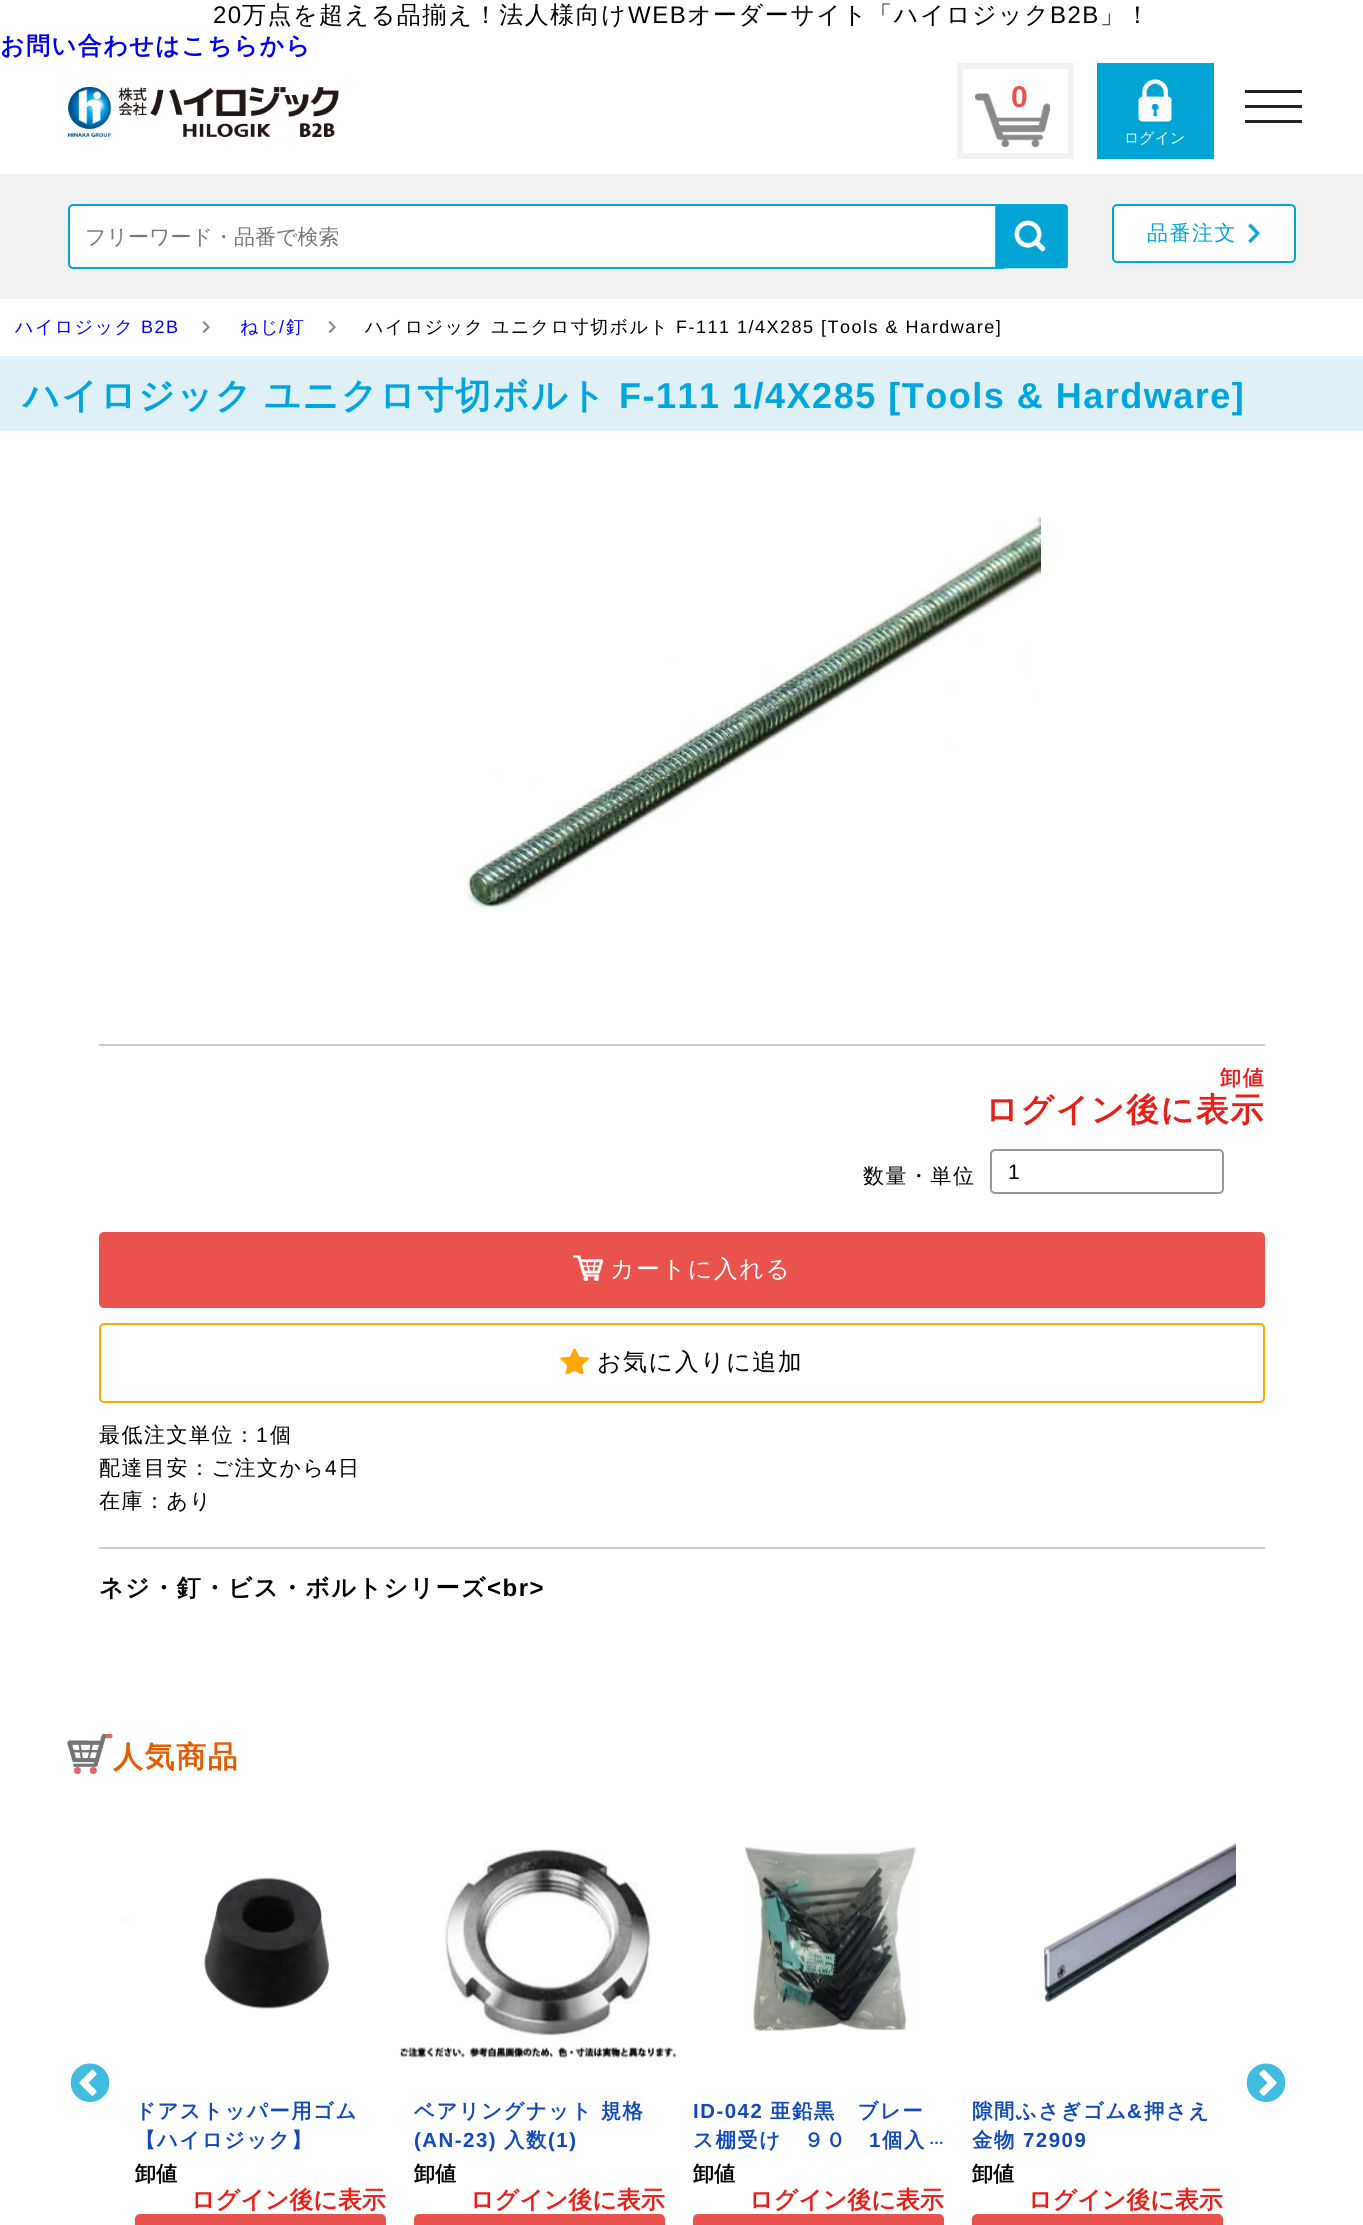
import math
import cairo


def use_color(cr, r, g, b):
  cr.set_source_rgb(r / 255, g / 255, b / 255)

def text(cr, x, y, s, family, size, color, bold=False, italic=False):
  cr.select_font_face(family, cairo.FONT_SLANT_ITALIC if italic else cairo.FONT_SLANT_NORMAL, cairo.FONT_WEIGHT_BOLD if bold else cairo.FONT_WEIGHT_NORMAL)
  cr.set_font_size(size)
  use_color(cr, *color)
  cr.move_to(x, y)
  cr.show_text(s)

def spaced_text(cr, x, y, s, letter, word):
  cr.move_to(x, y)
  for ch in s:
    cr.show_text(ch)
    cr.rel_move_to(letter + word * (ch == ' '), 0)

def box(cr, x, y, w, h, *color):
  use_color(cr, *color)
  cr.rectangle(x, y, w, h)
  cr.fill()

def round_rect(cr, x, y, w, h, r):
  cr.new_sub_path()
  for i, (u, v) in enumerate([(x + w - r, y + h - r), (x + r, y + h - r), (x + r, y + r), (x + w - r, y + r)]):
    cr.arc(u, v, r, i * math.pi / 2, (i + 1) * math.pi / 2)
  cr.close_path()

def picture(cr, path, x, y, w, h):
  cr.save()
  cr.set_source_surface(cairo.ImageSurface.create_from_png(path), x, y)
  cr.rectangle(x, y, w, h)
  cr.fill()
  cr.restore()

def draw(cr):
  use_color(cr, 255, 255, 255)
  cr.paint()
  picture(cr, "img_01.png", 68, 87, 271, 51)
  picture(cr, "img_02.png", 975, 93, 75, 54)
  cr.rectangle(960, 66, 111, 90)
  use_color(cr, 241, 241, 241)
  cr.set_line_width(6)
  cr.stroke()
  box(cr, 1245, 105, 57, 3, 34, 34, 34)
  box(cr, 1245, 90, 57, 3, 34, 34, 34)
  box(cr, 1245, 120, 57, 3, 34, 34, 34)
  box(cr, 1097, 63, 117, 96, 0, 165, 213)
  picture(cr, "img_03.png", 1138, 79, 34, 43)
  box(cr, 0, 174, 1363, 125, 241, 241, 241)
  use_color(cr, 255, 255, 255)
  round_rect(cr, 69, 205, 937, 63, 4)
  cr.fill_preserve()
  use_color(cr, 0, 165, 213)
  cr.set_line_width(2)
  cr.stroke()
  picture(cr, "img_04.png", 994, 204, 74, 65)
  box(cr, 1112, 204, 184, 59, 255, 255, 255)
  round_rect(cr, 1113, 205, 182, 57, 4)
  use_color(cr, 0, 165, 213)
  cr.stroke()
  picture(cr, "img_05.png", 1248, 223, 12, 20)
  picture(cr, "img_06.png", 202, 321, 8, 12)
  picture(cr, "img_06.png", 328, 321, 8, 12)
  box(cr, 0, 356, 1363, 75, 223, 241, 246)
  picture(cr, "img_07.png", 465, 515, 576, 396)
  box(cr, 99, 1044, 1166, 2, 204, 204, 204)
  box(cr, 99, 1547, 1166, 2, 204, 204, 204)
  round_rect(cr, 991, 1150, 232, 43, 4)
  use_color(cr, 152, 152, 152)
  cr.stroke()
  use_color(cr, 234, 83, 77)
  round_rect(cr, 99, 1232, 1166, 76, 5)
  cr.fill()
  picture(cr, "img_08.png", 573, 1255, 30, 26)
  round_rect(cr, 100, 1324, 1164, 78, 4)
  use_color(cr, 255, 168, 0)
  cr.stroke()
  picture(cr, "img_09.png", 559, 1348, 31, 26)
  picture(cr, "img_10.png", 67, 1734, 46, 40)
  picture(cr, "img_11.png", 70, 2063, 40, 39)
  picture(cr, "img_12.png", 1246, 2063, 40, 39)
  box(cr, 123, 1917, 8, 6, 251, 251, 251)
  picture(cr, "img_13.png", 204, 1877, 126, 132)
  use_color(cr, 234, 83, 77)
  round_rect(cr, 135, 2214, 251, 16, 5)
  cr.fill()
  picture(cr, "img_14.png", 399, 1849, 278, 209)
  round_rect(cr, 414, 2214, 251, 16, 5)
  cr.fill()
  picture(cr, "img_15.png", 744, 1846, 173, 186)
  round_rect(cr, 693, 2214, 251, 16, 5)
  cr.fill()
  picture(cr, "img_16.png", 1044, 1842, 192, 161)
  round_rect(cr, 972, 2214, 251, 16, 5)
  cr.fill()
  cr.select_font_face("Liberation Sans")
  cr.set_font_size(24)
  use_color(cr, 0, 0, 0)
  spaced_text(cr, 213, 23, "20", 1.5, 0)
  cr.select_font_face("WenQuanYi Zen Hei Medium")
  spaced_text(cr, 242, 23, "万点を超える品揃え！法人様向け", 1.5, 0)
  cr.select_font_face("Liberation Sans")
  spaced_text(cr, 628, 23, "WEB", 1.5, 0)
  cr.select_font_face("WenQuanYi Zen Hei Medium")
  spaced_text(cr, 687, 23, "オーダーサイト「ハイロジック", 1.5, 0)
  cr.select_font_face("Liberation Sans")
  spaced_text(cr, 1050, 23, "B2B", 1.5, 0)
  cr.select_font_face("WenQuanYi Zen Hei Medium")
  spaced_text(cr, 1100, 23, "」！", 1.5, 0)
  cr.select_font_face("WenQuanYi Zen Hei", cairo.FONT_SLANT_NORMAL, cairo.FONT_WEIGHT_BOLD)
  use_color(cr, 0, 0, 238)
  spaced_text(cr, 0, 54, "お問い合わせはこちらから", 1.5, 0)
  text(cr, 1011, 107, "0", "Liberation Sans", 30, (234, 83, 77), bold=True)
  text(cr, 1124, 143, "ログイン", "WenQuanYi Zen Hei Medium", 15, (255, 255, 255))
  text(cr, 85, 244, "フリーワード・品番で検索", "WenQuanYi Zen Hei Medium", 21, (117, 117, 117))
  use_color(cr, 0, 165, 213)
  spaced_text(cr, 1147, 240, "品番注文", 1.5, 0)
  cr.set_font_size(18)
  use_color(cr, 0, 0, 255)
  spaced_text(cr, 15, 333, "ハイロジック", 1.5, 0)
  cr.select_font_face("Liberation Sans")
  spaced_text(cr, 141, 333, "B2B", 1.5, 0)
  cr.select_font_face("WenQuanYi Zen Hei Medium")
  spaced_text(cr, 240, 333, "ねじ", 1.5, 0)
  cr.select_font_face("Liberation Sans")
  spaced_text(cr, 279, 333, "/", 1.5, 0)
  cr.select_font_face("WenQuanYi Zen Hei Medium")
  spaced_text(cr, 286, 333, "釘", 1.5, 0)
  use_color(cr, 0, 0, 0)
  spaced_text(cr, 365, 333, "ハイロジック", 1.5, 0)
  spaced_text(cr, 491, 333, "ユニクロ寸切ボルト", 1.5, 0)
  cr.select_font_face("Liberation Sans")
  spaced_text(cr, 676, 333, "F-111 1/4X285 [Tools & Hardware]", 1.5, 0)
  cr.select_font_face("WenQuanYi Zen Hei", cairo.FONT_SLANT_NORMAL, cairo.FONT_WEIGHT_BOLD)
  cr.set_font_size(36)
  use_color(cr, 0, 165, 221)
  spaced_text(cr, 23, 408, "ハイロジック", 1.5, 0)
  spaced_text(cr, 264, 408, "ユニクロ寸切ボルト", 1.5, 0)
  cr.select_font_face("Liberation Sans", cairo.FONT_SLANT_NORMAL, cairo.FONT_WEIGHT_BOLD)
  spaced_text(cr, 619, 408, "F-111 1/4X285 [Tools & Hardware]", 1.5, 0)
  cr.select_font_face("WenQuanYi Zen Hei", cairo.FONT_SLANT_NORMAL, cairo.FONT_WEIGHT_BOLD)
  cr.set_font_size(21)
  use_color(cr, 231, 31, 25)
  spaced_text(cr, 1220, 1085, "卸値", 1.5, 0)
  cr.set_font_size(33)
  spaced_text(cr, 985, 1121, "ログイン後に表示", 1.5, 0)
  cr.select_font_face("WenQuanYi Zen Hei Medium")
  cr.set_font_size(21)
  use_color(cr, 0, 0, 0)
  spaced_text(cr, 863, 1183, "数量・単位", 1.5, 0)
  text(cr, 1008, 1179, "1", "Liberation Sans", 21, (0, 0, 0))
  cr.select_font_face("WenQuanYi Zen Hei Medium")
  cr.set_font_size(24)
  use_color(cr, 255, 255, 255)
  spaced_text(cr, 610, 1277, "カートに入れる", 1.5, 0)
  use_color(cr, 0, 0, 0)
  spaced_text(cr, 597, 1370, "お気に入りに追加", 1.5, 0)
  cr.set_font_size(21)
  spaced_text(cr, 99, 1442, "最低注文単位：", 1.5, 0)
  cr.select_font_face("Liberation Sans")
  spaced_text(cr, 256, 1442, "1", 1.5, 0)
  cr.select_font_face("WenQuanYi Zen Hei Medium")
  spaced_text(cr, 270, 1442, "個", 1.5, 0)
  spaced_text(cr, 99, 1475, "配達目安：ご注文から", 1.5, 0)
  cr.select_font_face("Liberation Sans")
  spaced_text(cr, 325, 1475, "4", 1.5, 0)
  cr.select_font_face("WenQuanYi Zen Hei Medium")
  spaced_text(cr, 338, 1475, "日", 1.5, 0)
  spaced_text(cr, 99, 1508, "在庫：あり", 1.5, 0)
  cr.select_font_face("WenQuanYi Zen Hei", cairo.FONT_SLANT_NORMAL, cairo.FONT_WEIGHT_BOLD)
  cr.set_font_size(24)
  spaced_text(cr, 99, 1596, "ネジ・釘・ビス・ボルトシリーズ", 1.5, 0)
  cr.select_font_face("Liberation Sans", cairo.FONT_SLANT_NORMAL, cairo.FONT_WEIGHT_BOLD)
  spaced_text(cr, 487, 1596, "<br>", 1.5, 0)
  cr.select_font_face("WenQuanYi Zen Hei", cairo.FONT_SLANT_NORMAL, cairo.FONT_WEIGHT_BOLD)
  cr.set_font_size(30)
  use_color(cr, 228, 92, 1)
  spaced_text(cr, 113, 1767, "人気商品", 1.5, 0)
  cr.set_font_size(20.4)
  use_color(cr, 18, 73, 184)
  spaced_text(cr, 135, 2118, "ドアストッパー用ゴム", 1.5, 0)
  spaced_text(cr, 135, 2147, "【ハイロジック】", 1.5, 0)
  text(cr, 135, 2181, "卸値", "WenQuanYi Zen Hei", 21, (0, 0, 0), bold=True)
  text(cr, 191, 2208, "ログイン後に表示", "WenQuanYi Zen Hei", 24, (231, 31, 25), bold=True)
  cr.set_font_size(20.4)
  use_color(cr, 18, 73, 184)
  spaced_text(cr, 414, 2118, "ベアリングナット 規格", 1.5, 0)
  cr.select_font_face("Liberation Sans", cairo.FONT_SLANT_NORMAL, cairo.FONT_WEIGHT_BOLD)
  spaced_text(cr, 414, 2147, "(AN-23)", 1.5, 0)
  cr.select_font_face("WenQuanYi Zen Hei", cairo.FONT_SLANT_NORMAL, cairo.FONT_WEIGHT_BOLD)
  spaced_text(cr, 504, 2147, "入数", 1.5, 0)
  cr.select_font_face("Liberation Sans", cairo.FONT_SLANT_NORMAL, cairo.FONT_WEIGHT_BOLD)
  spaced_text(cr, 548, 2147, "(1)", 1.5, 0)
  text(cr, 414, 2181, "卸値", "WenQuanYi Zen Hei", 21, (0, 0, 0), bold=True)
  text(cr, 470, 2208, "ログイン後に表示", "WenQuanYi Zen Hei", 24, (231, 31, 25), bold=True)
  cr.select_font_face("Liberation Sans", cairo.FONT_SLANT_NORMAL, cairo.FONT_WEIGHT_BOLD)
  cr.set_font_size(20.4)
  use_color(cr, 18, 73, 184)
  spaced_text(cr, 693, 2118, "ID-042", 1.5, 0)
  cr.select_font_face("WenQuanYi Zen Hei", cairo.FONT_SLANT_NORMAL, cairo.FONT_WEIGHT_BOLD)
  spaced_text(cr, 770, 2118, "亜鉛黒　ブレー", 1.5, 0)
  spaced_text(cr, 693, 2147, "ス棚受け　９０", 1.5, 0)
  cr.select_font_face("Liberation Sans", cairo.FONT_SLANT_NORMAL, cairo.FONT_WEIGHT_BOLD)
  spaced_text(cr, 869, 2147, "1", 1.5, 0)
  cr.select_font_face("WenQuanYi Zen Hei", cairo.FONT_SLANT_NORMAL, cairo.FONT_WEIGHT_BOLD)
  spaced_text(cr, 882, 2147, "個入", 1.5, 0)
  text(cr, 929, 2144, "…", "Liberation Sans", 15, (18, 73, 184), bold=True)
  text(cr, 693, 2181, "卸値", "WenQuanYi Zen Hei", 21, (0, 0, 0), bold=True)
  text(cr, 749, 2208, "ログイン後に表示", "WenQuanYi Zen Hei", 24, (231, 31, 25), bold=True)
  cr.set_font_size(20.4)
  use_color(cr, 18, 73, 184)
  spaced_text(cr, 972, 2118, "隙間ふさぎゴム", 1.5, 0)
  cr.select_font_face("Liberation Sans", cairo.FONT_SLANT_NORMAL, cairo.FONT_WEIGHT_BOLD)
  spaced_text(cr, 1127, 2118, "&", 1.5, 0)
  cr.select_font_face("WenQuanYi Zen Hei", cairo.FONT_SLANT_NORMAL, cairo.FONT_WEIGHT_BOLD)
  spaced_text(cr, 1144, 2118, "押さえ", 1.5, 0)
  spaced_text(cr, 972, 2147, "金物", 1.5, 0)
  cr.select_font_face("Liberation Sans", cairo.FONT_SLANT_NORMAL, cairo.FONT_WEIGHT_BOLD)
  spaced_text(cr, 1023, 2147, "72909", 1.5, 0)
  text(cr, 972, 2181, "卸値", "WenQuanYi Zen Hei", 21, (0, 0, 0), bold=True)
  text(cr, 1028, 2208, "ログイン後に表示", "WenQuanYi Zen Hei", 24, (231, 31, 25), bold=True)


surface = cairo.ImageSurface(cairo.FORMAT_RGB24, 1363, 2225)
cr = cairo.Context(surface)
options = cairo.FontOptions()
options.set_hint_metrics(cairo.HINT_METRICS_OFF)
options.set_hint_style(cairo.HINT_STYLE_NONE)
cr.set_font_options(options)
cr.set_miter_limit(4)
draw(cr)
surface.write_to_png("out.png")
